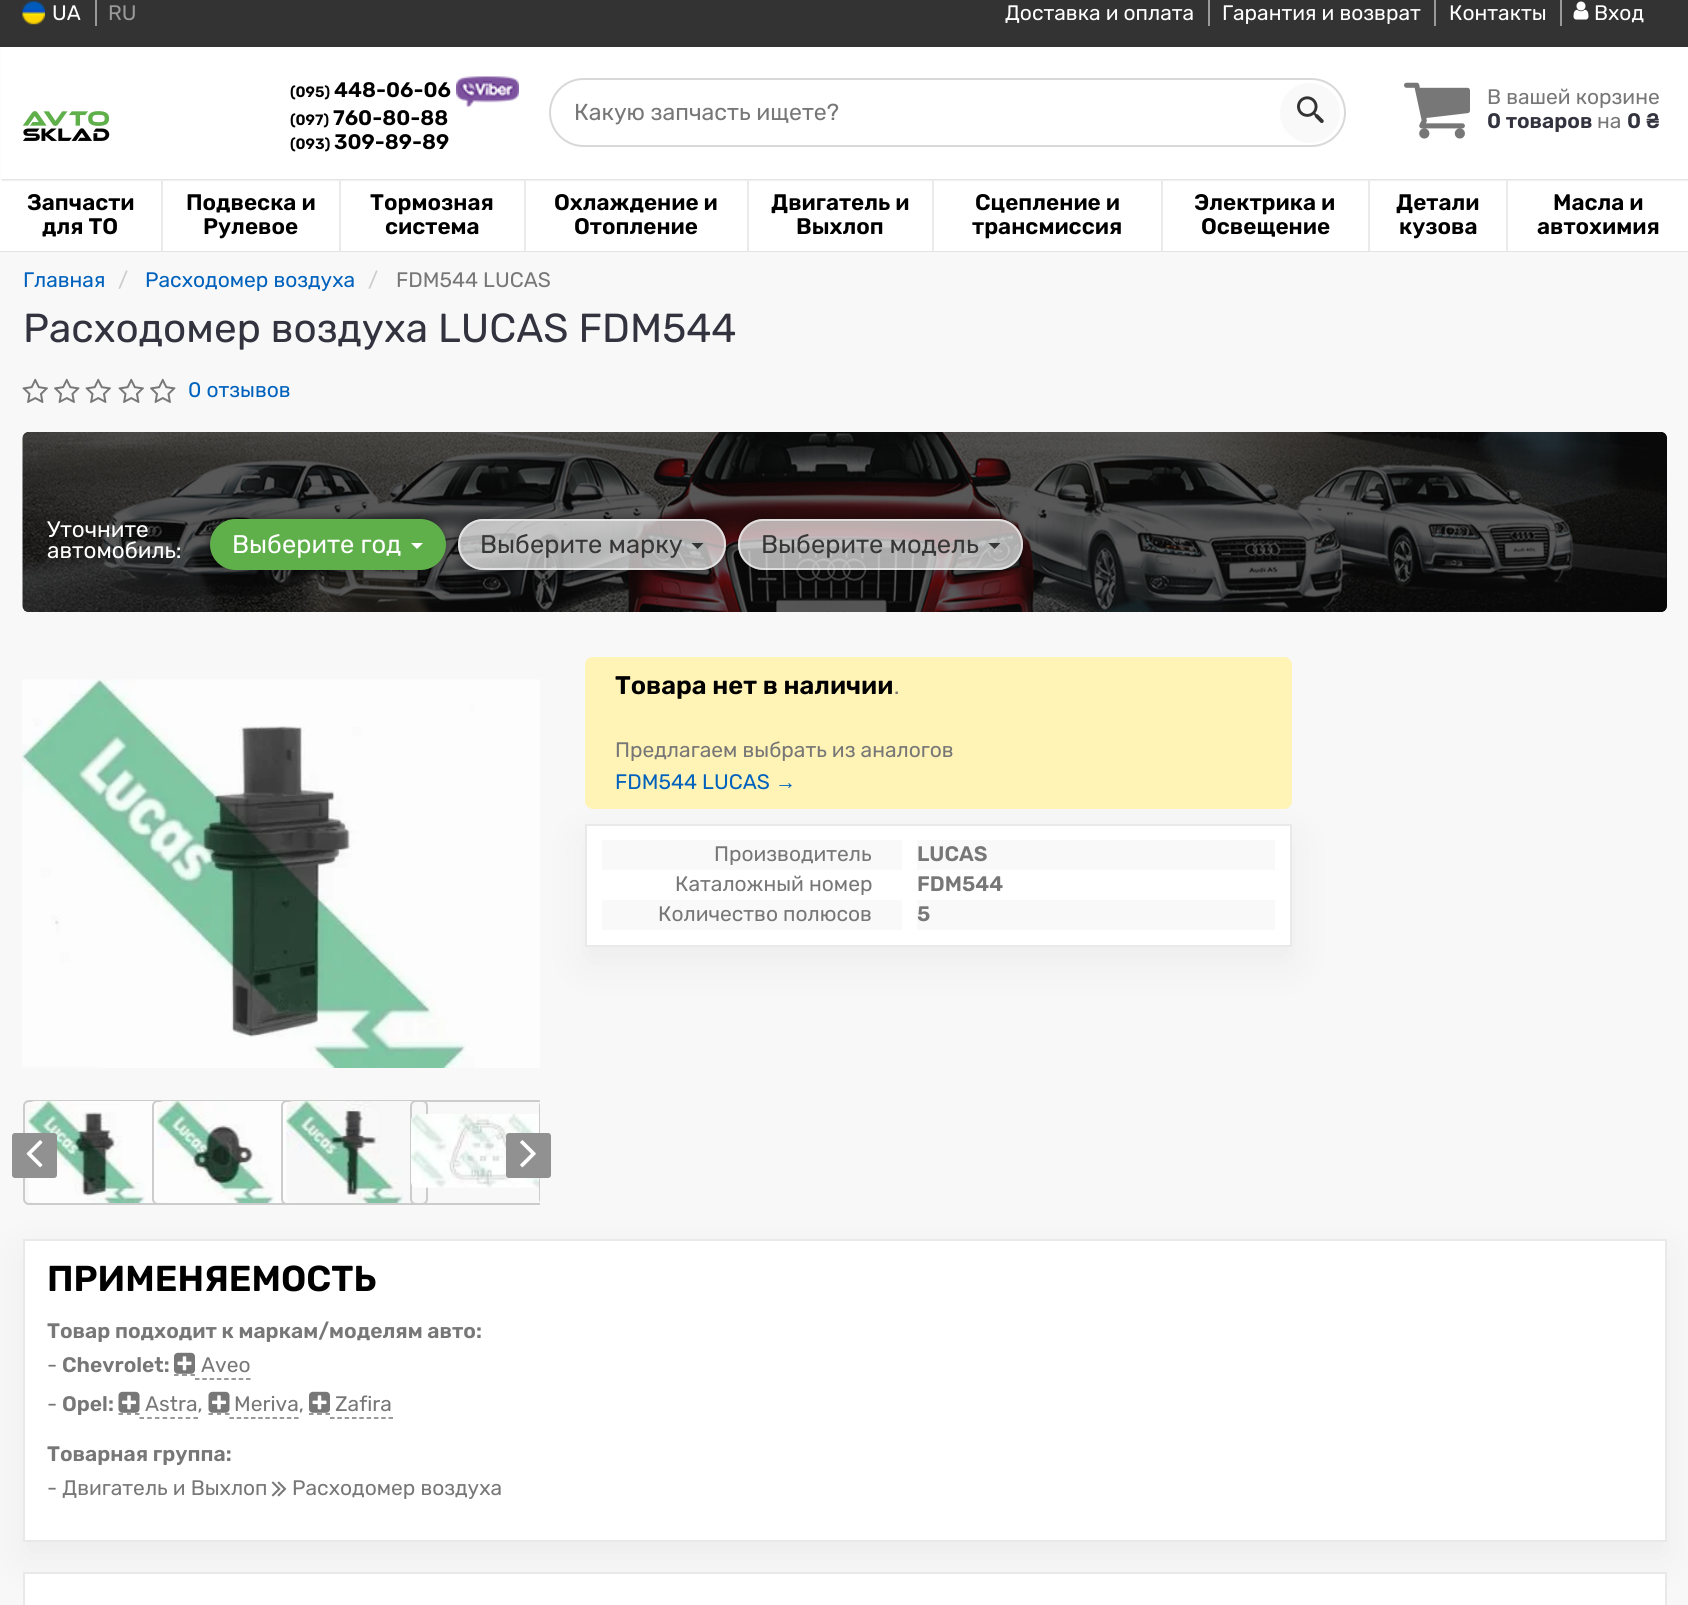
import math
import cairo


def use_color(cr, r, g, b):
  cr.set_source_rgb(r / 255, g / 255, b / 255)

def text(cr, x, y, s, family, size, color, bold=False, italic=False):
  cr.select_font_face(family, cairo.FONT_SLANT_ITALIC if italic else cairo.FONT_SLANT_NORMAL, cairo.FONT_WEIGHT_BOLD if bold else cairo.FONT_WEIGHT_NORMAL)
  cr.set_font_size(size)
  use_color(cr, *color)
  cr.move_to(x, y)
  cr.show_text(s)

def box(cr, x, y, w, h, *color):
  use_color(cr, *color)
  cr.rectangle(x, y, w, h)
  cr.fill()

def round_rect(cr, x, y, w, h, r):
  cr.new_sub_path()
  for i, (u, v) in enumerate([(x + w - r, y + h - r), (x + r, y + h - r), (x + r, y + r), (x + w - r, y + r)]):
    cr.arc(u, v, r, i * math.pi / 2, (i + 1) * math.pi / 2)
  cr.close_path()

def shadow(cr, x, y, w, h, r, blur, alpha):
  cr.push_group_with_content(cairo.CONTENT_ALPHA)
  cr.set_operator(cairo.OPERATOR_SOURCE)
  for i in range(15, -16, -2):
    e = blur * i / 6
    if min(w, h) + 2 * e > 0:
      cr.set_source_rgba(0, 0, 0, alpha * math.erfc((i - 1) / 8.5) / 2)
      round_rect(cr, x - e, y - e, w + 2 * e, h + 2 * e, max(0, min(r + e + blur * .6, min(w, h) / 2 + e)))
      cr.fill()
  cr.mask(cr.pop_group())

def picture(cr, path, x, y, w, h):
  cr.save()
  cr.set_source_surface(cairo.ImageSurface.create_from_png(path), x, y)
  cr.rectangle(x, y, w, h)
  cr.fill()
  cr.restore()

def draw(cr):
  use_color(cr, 255, 255, 255)
  cr.paint()
  box(cr, 0, 0, 1688, 47, 51, 51, 51)
  picture(cr, "img_01.png", 22, 1, 23, 24)
  box(cr, 95, 0, 2, 26, 153, 153, 153)
  box(cr, 1208, 0, 2, 26, 153, 153, 153)
  box(cr, 1434, 0, 2, 26, 153, 153, 153)
  box(cr, 1560, 0, 2, 26, 153, 153, 153)
  picture(cr, "img_02.png", 1573, 1, 16, 19)
  use_color(cr, 0, 0, 0)
  shadow(cr, 2, 48, 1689, 132, 0, 1, 0.15)
  box(cr, 1, 47, 1687, 132, 255, 255, 255)
  picture(cr, "img_03.png", 23, 111, 87, 30)
  picture(cr, "img_04.png", 456, 76, 63, 31)
  round_rect(cr, 550, 79, 795, 67, 33.5)
  use_color(cr, 216, 216, 216)
  cr.stroke()
  use_color(cr, 249, 249, 249)
  cr.arc(1310, 113, 30, 0, 2 * math.pi)
  cr.fill()
  picture(cr, "img_05.png", 1297, 96, 27, 27)
  picture(cr, "img_06.png", 1404, 82, 66, 57)
  box(cr, 0, 251, 1688, 1, 227, 227, 227)
  box(cr, 161, 179, 2, 72, 234, 234, 234)
  box(cr, 339, 179, 2, 72, 234, 234, 234)
  box(cr, 524, 179, 2, 72, 234, 234, 234)
  box(cr, 747, 179, 2, 72, 234, 234, 234)
  box(cr, 932, 179, 2, 72, 234, 234, 234)
  box(cr, 1161, 179, 2, 72, 234, 234, 234)
  box(cr, 1368, 179, 2, 72, 234, 234, 234)
  box(cr, 1506, 179, 2, 72, 234, 234, 234)
  box(cr, 0, 252, 1688, 1353, 248, 248, 248)
  picture(cr, "img_07.png", 22, 378, 26, 25)
  picture(cr, "img_08.png", 54, 378, 26, 25)
  picture(cr, "img_07.png", 85, 378, 26, 25)
  picture(cr, "img_07.png", 118, 378, 26, 25)
  picture(cr, "img_08.png", 150, 378, 26, 25)
  use_color(cr, 6, 6, 6)
  round_rect(cr, 23, 432, 1644, 180, 6)
  cr.fill()
  picture(cr, "img_09.png", 22, 432, 1645, 180)
  use_color(cr, 0, 0, 0)
  shadow(cr, 209, 518, 235, 51, 25.5, 4.5, 0.5)
  use_color(cr, 95, 175, 75)
  round_rect(cr, 211, 520, 234, 49, 24.5)
  cr.fill_preserve()
  cr.stroke()
  use_color(cr, 255, 255, 255)
  cr.new_path()
  cr.move_to(411, 543)
  cr.line_to(423, 543)
  cr.line_to(417, 549)
  cr.close_path()
  cr.fill()
  cr.save()
  cr.set_fill_rule(cairo.FILL_RULE_EVEN_ODD)
  cr.new_path()
  cr.move_to(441, 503)
  cr.line_to(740, 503)
  cr.line_to(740, 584)
  cr.line_to(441, 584)
  cr.close_path()
  cr.move_to(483.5, 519)
  cr.line_to(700.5, 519)
  cr.curve_to(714.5, 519, 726, 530.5, 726, 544.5)
  cr.curve_to(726, 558.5, 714.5, 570, 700.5, 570)
  cr.line_to(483.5, 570)
  cr.curve_to(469.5, 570, 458, 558.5, 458, 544.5)
  cr.curve_to(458, 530.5, 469.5, 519, 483.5, 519)
  cr.close_path()
  cr.clip()
  use_color(cr, 0, 0, 0)
  shadow(cr, 456, 518, 269, 51, 25.5, 4.5, 0.35)
  cr.restore()
  cr.set_source_rgba(0.949, 0.949, 0.949, 0.7)
  round_rect(cr, 458, 519, 268, 51, 25.5)
  cr.fill()
  round_rect(cr, 459, 520, 266, 49, 24.5)
  cr.stroke()
  cr.set_source_rgba(0, 0, 0, 0.7)
  cr.new_path()
  cr.move_to(691.5, 543)
  cr.line_to(703.5, 543)
  cr.line_to(697.5, 549)
  cr.close_path()
  cr.fill()
  cr.save()
  cr.set_fill_rule(cairo.FILL_RULE_EVEN_ODD)
  cr.new_path()
  cr.move_to(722, 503)
  cr.line_to(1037, 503)
  cr.line_to(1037, 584)
  cr.line_to(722, 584)
  cr.close_path()
  cr.move_to(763.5, 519)
  cr.line_to(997.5, 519)
  cr.curve_to(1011.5, 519, 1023, 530.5, 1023, 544.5)
  cr.curve_to(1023, 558.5, 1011.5, 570, 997.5, 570)
  cr.line_to(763.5, 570)
  cr.curve_to(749.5, 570, 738, 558.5, 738, 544.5)
  cr.curve_to(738, 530.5, 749.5, 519, 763.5, 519)
  cr.close_path()
  cr.clip()
  use_color(cr, 0, 0, 0)
  shadow(cr, 737, 518, 285, 51, 25.5, 4.5, 0.35)
  cr.restore()
  cr.set_source_rgba(0.949, 0.949, 0.949, 0.7)
  round_rect(cr, 738, 519, 285, 51, 25.5)
  cr.fill()
  round_rect(cr, 739, 520, 283, 49, 24.5)
  cr.stroke()
  cr.set_source_rgba(0, 0, 0, 0.7)
  cr.new_path()
  cr.move_to(988.5, 543)
  cr.line_to(1000.5, 543)
  cr.line_to(994.5, 549)
  cr.close_path()
  cr.fill()
  picture(cr, "img_10.png", 22, 679, 518, 389)
  use_color(cr, 0, 0, 0)
  shadow(cr, 23, 1254, 1644, 303, 0, 22.5, 0.05)
  round_rect(cr, 24, 1101, 145, 103, 5)
  use_color(cr, 204, 204, 204)
  cr.stroke()
  picture(cr, "img_11.png", 28, 1101, 133, 102)
  round_rect(cr, 153, 1101, 145, 103, 5)
  cr.stroke()
  picture(cr, "img_12.png", 157, 1101, 133, 102)
  round_rect(cr, 282, 1101, 145, 103, 5)
  cr.stroke()
  picture(cr, "img_13.png", 286, 1101, 133, 102)
  cr.save()
  cr.rectangle(23, 1092, 517, 114)
  cr.clip()
  round_rect(cr, 411, 1101, 145, 103, 5)
  cr.stroke()
  cr.restore()
  picture(cr, "img_14.png", 411, 1114, 128, 74)
  cr.save()
  cr.rectangle(23, 1092, 517, 114)
  cr.clip()
  round_rect(cr, 540, 1101, 145, 103, 5)
  cr.stroke()
  cr.restore()
  use_color(cr, 145, 145, 145)
  round_rect(cr, 12, 1133, 45, 45, 3)
  cr.fill()
  picture(cr, "img_15.png", 26, 1140, 17, 28)
  round_rect(cr, 506, 1133, 45, 45, 3)
  cr.fill()
  picture(cr, "img_16.png", 520, 1140, 16, 28)
  use_color(cr, 0, 0, 0)
  shadow(cr, 585, 839, 707, 123, 0, 22.5, 0.05)
  use_color(cr, 255, 243, 181)
  round_rect(cr, 585, 657, 707, 152, 8)
  cr.fill()
  use_color(cr, 255, 255, 255)
  cr.rectangle(586, 825, 705, 121)
  cr.fill_preserve()
  use_color(cr, 233, 233, 233)
  cr.stroke()
  box(cr, 602, 840, 300, 30, 249, 249, 249)
  box(cr, 917, 840, 358, 30, 249, 249, 249)
  box(cr, 602, 900, 300, 30, 249, 249, 249)
  box(cr, 917, 900, 358, 30, 249, 249, 249)
  use_color(cr, 255, 255, 255)
  cr.rectangle(24, 1240, 1642, 301)
  cr.fill_preserve()
  use_color(cr, 233, 233, 233)
  cr.stroke()
  picture(cr, "img_17.png", 174, 1352, 21, 22)
  cr.new_path()
  cr.move_to(174, 1375)
  cr.line_to(178.5, 1375)
  cr.move_to(182, 1375)
  cr.line_to(187, 1375)
  cr.move_to(190.5, 1375)
  cr.line_to(195, 1375)
  use_color(cr, 119, 119, 119)
  cr.set_line_width(1.5)
  cr.stroke()
  cr.new_path()
  cr.move_to(195, 1379)
  cr.line_to(250.5, 1379)
  cr.set_dash([4.5, 2.79])
  cr.stroke()
  picture(cr, "img_18.png", 118, 1391, 22, 22)
  cr.new_path()
  cr.move_to(118.5, 1414)
  cr.line_to(123, 1414)
  cr.move_to(127, 1414)
  cr.line_to(131, 1414)
  cr.move_to(135, 1414)
  cr.line_to(139.5, 1414)
  cr.set_dash([])
  cr.stroke()
  cr.new_path()
  cr.move_to(139.5, 1418)
  cr.line_to(198, 1418)
  cr.set_dash([4.5, 3.21])
  cr.stroke()
  picture(cr, "img_18.png", 208, 1391, 22, 22)
  cr.new_path()
  cr.move_to(208.5, 1414)
  cr.line_to(213, 1414)
  cr.move_to(217, 1414)
  cr.line_to(221, 1414)
  cr.move_to(225, 1414)
  cr.line_to(229.5, 1414)
  cr.set_dash([])
  cr.stroke()
  cr.new_path()
  cr.move_to(229.5, 1418)
  cr.line_to(298.5, 1418)
  cr.set_dash([4.5, 2.67])
  cr.stroke()
  picture(cr, "img_17.png", 309, 1391, 21, 22)
  cr.new_path()
  cr.move_to(309, 1414)
  cr.line_to(313.5, 1414)
  cr.move_to(317, 1414)
  cr.line_to(322, 1414)
  cr.move_to(325.5, 1414)
  cr.line_to(330, 1414)
  cr.set_dash([])
  cr.stroke()
  cr.new_path()
  cr.move_to(330, 1418)
  cr.line_to(393, 1418)
  cr.set_dash([4.5, 2.82])
  cr.stroke()
  picture(cr, "img_19.png", 271, 1481, 16, 16)
  use_color(cr, 255, 255, 255)
  cr.rectangle(24, 1573, 1642, 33)
  cr.fill_preserve()
  use_color(cr, 233, 233, 233)
  cr.set_line_width(2)
  cr.set_dash([])
  cr.stroke()
  text(cr, 52, 20, "UA", "Rubik", 21, (255, 255, 255))
  text(cr, 108, 20, "RU", "Rubik", 21, (153, 153, 153))
  text(cr, 1005, 20, "Доставка и оплата", "Rubik", 21, (255, 255, 255))
  text(cr, 1222, 20, "Гарантия и возврат", "Rubik", 21, (255, 255, 255))
  text(cr, 1449, 20, "Контакты", "Rubik", 21, (255, 255, 255))
  text(cr, 1594, 20, "Вход", "Rubik", 21, (255, 255, 255))
  text(cr, 290, 97, "(095)", "Rubik SemiBold", 15, (0, 0, 0))
  text(cr, 334, 97, "448-06-06", "Rubik SemiBold", 21, (0, 0, 0))
  text(cr, 290, 125, "(097)", "Rubik SemiBold", 15, (0, 0, 0))
  text(cr, 333, 125, "760-80-88", "Rubik SemiBold", 21, (0, 0, 0))
  text(cr, 290, 149, "(093)", "Rubik SemiBold", 15, (0, 0, 0))
  text(cr, 334, 149, "309-89-89", "Rubik SemiBold", 21, (0, 0, 0))
  text(cr, 574, 120, "Какую запчасть ищете?", "Rubik", 23.1, (119, 119, 119))
  text(cr, 1487, 104, "В вашей корзине", "Rubik", 21, (119, 119, 119))
  text(cr, 1487, 128, "0 товаров", "Rubik SemiBold", 21, (51, 51, 63))
  text(cr, 1597, 128, "на", "Rubik", 21, (119, 119, 119))
  text(cr, 1627, 128, "0 ₴", "Rubik SemiBold", 21, (51, 51, 63))
  text(cr, 27, 210, "Запчасти", "Rubik SemiBold", 22.5, (0, 0, 0))
  text(cr, 42, 234, "для ТО", "Rubik SemiBold", 22.5, (0, 0, 0))
  text(cr, 186, 210, "Подвеска и", "Rubik SemiBold", 22.5, (0, 0, 0))
  text(cr, 203, 234, "Рулевое", "Rubik SemiBold", 22.5, (0, 0, 0))
  text(cr, 370, 210, "Тормозная", "Rubik SemiBold", 22.5, (0, 0, 0))
  text(cr, 385, 234, "система", "Rubik SemiBold", 22.5, (0, 0, 0))
  text(cr, 554, 210, "Охлаждение и", "Rubik SemiBold", 22.5, (0, 0, 0))
  text(cr, 574, 234, "Отопление", "Rubik SemiBold", 22.5, (0, 0, 0))
  text(cr, 771, 210, "Двигатель и", "Rubik SemiBold", 22.5, (0, 0, 0))
  text(cr, 796, 234, "Выхлоп", "Rubik SemiBold", 22.5, (0, 0, 0))
  text(cr, 975, 210, "Сцепление и", "Rubik SemiBold", 22.5, (0, 0, 0))
  text(cr, 972, 234, "трансмиссия", "Rubik SemiBold", 22.5, (0, 0, 0))
  text(cr, 1194, 210, "Электрика и", "Rubik SemiBold", 22.5, (0, 0, 0))
  text(cr, 1201, 234, "Освещение", "Rubik SemiBold", 22.5, (0, 0, 0))
  text(cr, 1396, 210, "Детали", "Rubik SemiBold", 22.5, (0, 0, 0))
  text(cr, 1399, 234, "кузова", "Rubik SemiBold", 22.5, (0, 0, 0))
  text(cr, 1553, 210, "Масла и", "Rubik SemiBold", 22.5, (0, 0, 0))
  text(cr, 1537, 234, "автохимия", "Rubik SemiBold", 22.5, (0, 0, 0))
  text(cr, 23, 287, "Главная", "Rubik", 21, (0, 98, 189))
  text(cr, 118, 287, "/", "Rubik", 21, (204, 204, 204))
  text(cr, 145, 287, "Расходомер воздуха", "Rubik", 21, (0, 98, 189))
  text(cr, 368, 287, "/", "Rubik", 21, (204, 204, 204))
  text(cr, 396, 287, "FDM544 LUCAS", "Rubik", 21, (119, 119, 119))
  text(cr, 23, 342, "Расходомер воздуха LUCAS FDM544", "Rubik", 40.5, (51, 51, 63))
  text(cr, 188, 397, "0 отзывов", "Rubik", 21, (0, 98, 189))
  text(cr, 47, 537, "Уточните", "Rubik", 22.5, (255, 255, 255))
  text(cr, 47, 558, "автомобиль:", "Rubik", 22.5, (255, 255, 255))
  text(cr, 232, 553, "Выберите год", "Rubik", 25.5, (255, 255, 255))
  text(cr, 480, 553, "Выберите марку", "Rubik", 25.5, (55, 55, 55))
  text(cr, 761, 553, "Выберите модель", "Rubik", 25.5, (55, 55, 55))
  text(cr, 615, 694, "Товара нет в наличии", "Rubik SemiBold", 25.5, (0, 0, 0))
  text(cr, 894, 694, ".", "Rubik", 21, (119, 119, 119))
  text(cr, 615, 757, "Предлагаем выбрать из аналогов", "Rubik", 21, (119, 119, 119))
  text(cr, 615, 789, "FDM544 LUCAS", "Rubik", 21, (0, 98, 189))
  text(cr, 775, 789, "→", "Liberation Sans", 21, (0, 98, 189))
  text(cr, 714, 861, "Производитель", "Rubik", 21, (119, 119, 119))
  text(cr, 917, 861, "LUCAS", "Rubik SemiBold", 21, (119, 119, 119))
  text(cr, 675, 891, "Каталожный номер", "Rubik", 21, (119, 119, 119))
  text(cr, 917, 891, "FDM544", "Rubik SemiBold", 21, (119, 119, 119))
  text(cr, 658, 921, "Количество полюсов", "Rubik", 21, (119, 119, 119))
  text(cr, 917, 921, "5", "Rubik SemiBold", 21, (119, 119, 119))
  text(cr, 47, 1291, "ПРИМЕНЯЕМОСТЬ", "Rubik SemiBold", 36, (0, 0, 0))
  text(cr, 47, 1338, "Товар подходит к маркам/моделям авто:", "Rubik SemiBold", 21, (119, 119, 119))
  text(cr, 47, 1372, "-", "Rubik", 21, (119, 119, 119))
  text(cr, 62, 1372, "Chevrolet:", "Rubik SemiBold", 21, (119, 119, 119))
  text(cr, 201, 1372, "Aveo", "Rubik", 21, (119, 119, 119))
  text(cr, 47, 1411, "-", "Rubik", 21, (119, 119, 119))
  text(cr, 62, 1411, "Opel:", "Rubik SemiBold", 21, (119, 119, 119))
  text(cr, 145, 1411, "Astra,", "Rubik", 21, (119, 119, 119))
  text(cr, 234, 1411, "Meriva,", "Rubik", 21, (119, 119, 119))
  text(cr, 335, 1411, "Zafira", "Rubik", 21, (119, 119, 119))
  text(cr, 47, 1461, "Товарная группа:", "Rubik SemiBold", 21, (119, 119, 119))
  text(cr, 47, 1495, "- Двигатель и Выхлоп", "Rubik", 21, (119, 119, 119))
  text(cr, 292, 1495, "Расходомер воздуха", "Rubik", 21, (119, 119, 119))


surface = cairo.ImageSurface(cairo.FORMAT_RGB24, 1688, 1605)
cr = cairo.Context(surface)
options = cairo.FontOptions()
options.set_hint_metrics(cairo.HINT_METRICS_OFF)
options.set_hint_style(cairo.HINT_STYLE_NONE)
cr.set_font_options(options)
cr.set_miter_limit(4)
draw(cr)
surface.write_to_png("out.png")
